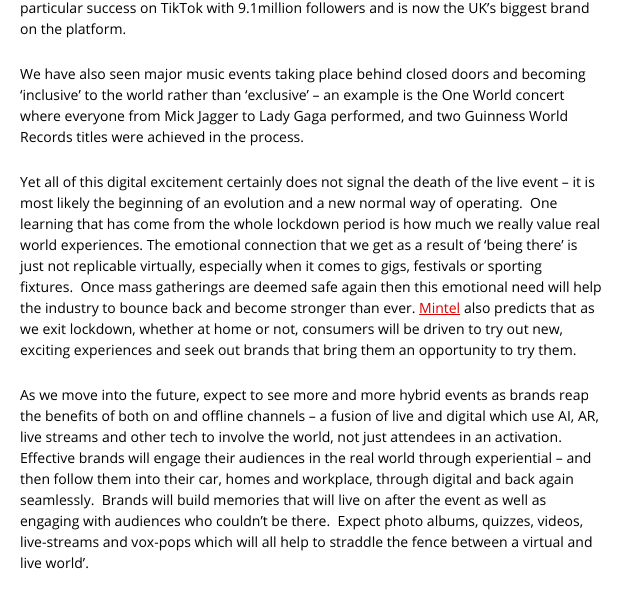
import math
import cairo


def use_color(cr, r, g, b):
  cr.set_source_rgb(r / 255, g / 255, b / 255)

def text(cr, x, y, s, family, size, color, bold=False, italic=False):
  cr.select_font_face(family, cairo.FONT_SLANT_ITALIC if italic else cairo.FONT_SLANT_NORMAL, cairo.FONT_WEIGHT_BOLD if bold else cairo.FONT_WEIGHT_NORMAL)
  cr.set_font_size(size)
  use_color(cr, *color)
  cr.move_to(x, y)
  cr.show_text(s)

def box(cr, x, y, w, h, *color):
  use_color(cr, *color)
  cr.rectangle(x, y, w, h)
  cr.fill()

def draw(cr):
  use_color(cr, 255, 255, 255)
  cr.paint()
  box(cr, 419, 314, 41, 1, 220, 0, 0)
  text(cr, 20, 13, "particular success on TikTok with 9.1million followers and is now the UK’s biggest brand", "Open Sans", 14, (0, 0, 0))
  text(cr, 20, 34, "on the platform.", "Open Sans", 14, (0, 0, 0))
  text(cr, 20, 79, "We have also seen major music events taking place behind closed doors and becoming", "Open Sans", 14, (0, 0, 0))
  text(cr, 20, 100, "‘inclusive’ to the world rather than ‘exclusive’ – an example is the One World concert", "Open Sans", 14, (0, 0, 0))
  text(cr, 20, 121, "where everyone from Mick Jagger to Lady Gaga performed, and two Guinness World", "Open Sans", 14, (0, 0, 0))
  text(cr, 20, 142, "Records titles were achieved in the process.", "Open Sans", 14, (0, 0, 0))
  text(cr, 20, 187, "Yet all of this digital excitement certainly does not signal the death of the live event – it is", "Open Sans", 14, (0, 0, 0))
  text(cr, 20, 208, "most likely the beginning of an evolution and a new normal way of operating.  One", "Open Sans", 14, (0, 0, 0))
  text(cr, 20, 229, "learning that has come from the whole lockdown period is how much we really value real", "Open Sans", 14, (0, 0, 0))
  text(cr, 20, 250, "world experiences. The emotional connection that we get as a result of ‘being there’ is", "Open Sans", 14, (0, 0, 0))
  text(cr, 20, 271, "just not replicable virtually, especially when it comes to gigs, festivals or sporting", "Open Sans", 14, (0, 0, 0))
  text(cr, 20, 292, "fixtures.  Once mass gatherings are deemed safe again then this emotional need will help", "Open Sans", 14, (0, 0, 0))
  text(cr, 20, 313, "the industry to bounce back and become stronger than ever.", "Open Sans", 14, (0, 0, 0))
  text(cr, 419, 313, "Mintel", "Open Sans", 14, (220, 0, 0))
  text(cr, 464, 313, "also predicts that as", "Open Sans", 14, (0, 0, 0))
  text(cr, 20, 334, "we exit lockdown, whether at home or not, consumers will be driven to try out new,", "Open Sans", 14, (0, 0, 0))
  text(cr, 20, 355, "exciting experiences and seek out brands that bring them an opportunity to try them.", "Open Sans", 14, (0, 0, 0))
  text(cr, 20, 400, "As we move into the future, expect to see more and more hybrid events as brands reap", "Open Sans", 14, (0, 0, 0))
  text(cr, 20, 421, "the benefits of both on and offline channels – a fusion of live and digital which use AI, AR,", "Open Sans", 14, (0, 0, 0))
  text(cr, 20, 442, "live streams and other tech to involve the world, not just attendees in an activation.", "Open Sans", 14, (0, 0, 0))
  text(cr, 20, 463, "Effective brands will engage their audiences in the real world through experiential – and", "Open Sans", 14, (0, 0, 0))
  text(cr, 20, 484, "then follow them into their car, homes and workplace, through digital and back again", "Open Sans", 14, (0, 0, 0))
  text(cr, 20, 505, "seamlessly.  Brands will build memories that will live on after the event as well as", "Open Sans", 14, (0, 0, 0))
  text(cr, 20, 526, "engaging with audiences who couldn’t be there.  Expect photo albums, quizzes, videos,", "Open Sans", 14, (0, 0, 0))
  text(cr, 20, 547, "live-streams and vox-pops which will all help to straddle the fence between a virtual and", "Open Sans", 14, (0, 0, 0))
  text(cr, 20, 568, "live world’.", "Open Sans", 14, (0, 0, 0))


surface = cairo.ImageSurface(cairo.FORMAT_RGB24, 622, 597)
cr = cairo.Context(surface)
options = cairo.FontOptions()
options.set_hint_metrics(cairo.HINT_METRICS_OFF)
options.set_hint_style(cairo.HINT_STYLE_NONE)
cr.set_font_options(options)
cr.set_miter_limit(4)
draw(cr)
surface.write_to_png("out.png")
